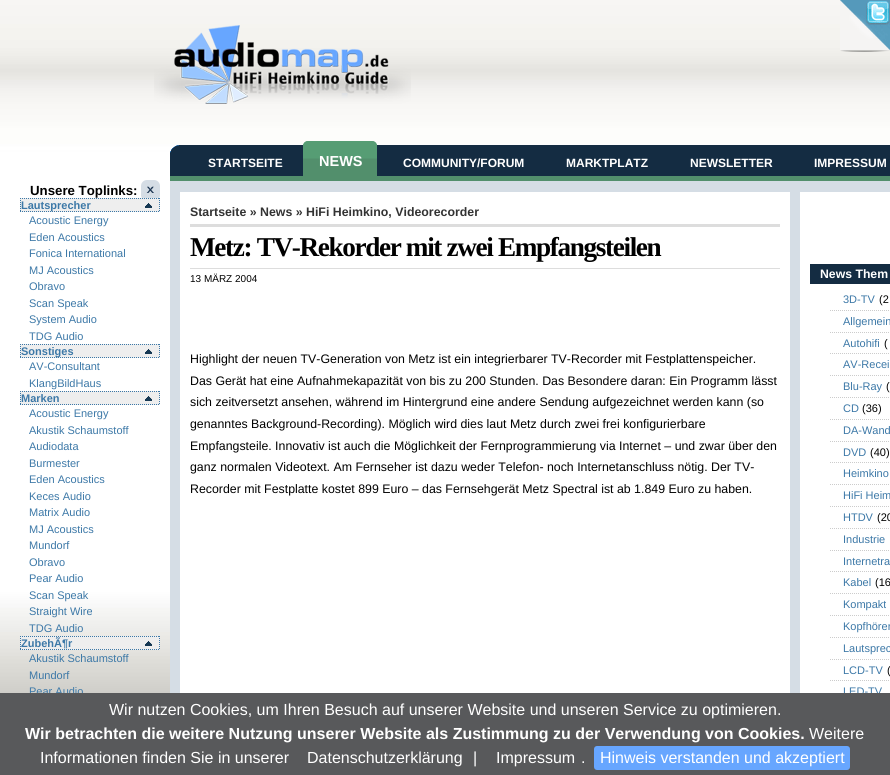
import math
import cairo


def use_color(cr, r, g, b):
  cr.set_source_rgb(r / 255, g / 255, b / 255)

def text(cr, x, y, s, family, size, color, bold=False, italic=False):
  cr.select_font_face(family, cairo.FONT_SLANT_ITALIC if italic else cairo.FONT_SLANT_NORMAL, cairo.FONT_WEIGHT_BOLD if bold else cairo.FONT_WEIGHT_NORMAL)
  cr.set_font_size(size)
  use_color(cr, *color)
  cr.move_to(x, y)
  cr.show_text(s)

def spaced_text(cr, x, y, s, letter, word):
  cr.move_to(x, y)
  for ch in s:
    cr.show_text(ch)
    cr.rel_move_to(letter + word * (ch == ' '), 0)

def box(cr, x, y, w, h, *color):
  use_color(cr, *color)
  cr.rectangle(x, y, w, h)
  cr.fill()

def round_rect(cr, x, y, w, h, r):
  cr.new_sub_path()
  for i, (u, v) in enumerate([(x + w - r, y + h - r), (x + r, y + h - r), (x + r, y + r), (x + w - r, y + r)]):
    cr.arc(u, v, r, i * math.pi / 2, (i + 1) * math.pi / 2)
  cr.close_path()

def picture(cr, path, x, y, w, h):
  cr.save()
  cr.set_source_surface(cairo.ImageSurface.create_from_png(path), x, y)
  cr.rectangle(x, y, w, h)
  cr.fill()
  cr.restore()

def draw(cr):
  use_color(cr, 255, 255, 255)
  cr.paint()
  picture(cr, "img_01.png", 0, 0, 890, 693)
  picture(cr, "img_02.png", 840, 0, 50, 50)
  picture(cr, "img_03.png", 840, 0, 50, 52)
  picture(cr, "img_04.png", 154, 25, 257, 79)
  use_color(cr, 213, 221, 229)
  round_rect(cr, 141, 180, 19, 21, 6)
  cr.fill()
  picture(cr, "img_05.png", 146, 186, 8, 7)
  box(cr, 20, 198, 140, 14, 238, 238, 238)
  picture(cr, "img_06.png", 145, 203, 7, 5)
  cr.new_path()
  cr.move_to(20, 198.5)
  cr.line_to(160, 198.5)
  use_color(cr, 60, 120, 167)
  cr.set_line_width(1)
  cr.set_dash([1, 1])
  cr.stroke()
  cr.new_path()
  cr.move_to(159.5, 198)
  cr.line_to(159.5, 212)
  cr.stroke()
  cr.new_path()
  cr.move_to(20, 211.5)
  cr.line_to(160, 211.5)
  cr.stroke()
  cr.new_path()
  cr.move_to(20.5, 198)
  cr.line_to(20.5, 212)
  cr.stroke()
  box(cr, 20, 344, 140, 14, 238, 238, 238)
  picture(cr, "img_06.png", 145, 349, 7, 5)
  cr.new_path()
  cr.move_to(20, 344.5)
  cr.line_to(160, 344.5)
  use_color(cr, 60, 120, 167)
  cr.stroke()
  cr.new_path()
  cr.move_to(159.5, 344)
  cr.line_to(159.5, 358)
  cr.stroke()
  cr.new_path()
  cr.move_to(20, 357.5)
  cr.line_to(160, 357.5)
  cr.stroke()
  cr.new_path()
  cr.move_to(20.5, 344)
  cr.line_to(20.5, 358)
  cr.stroke()
  box(cr, 20, 391, 140, 14, 238, 238, 238)
  picture(cr, "img_06.png", 145, 396, 7, 5)
  cr.new_path()
  cr.move_to(20, 391.5)
  cr.line_to(160, 391.5)
  use_color(cr, 60, 120, 167)
  cr.stroke()
  cr.new_path()
  cr.move_to(159.5, 391)
  cr.line_to(159.5, 405)
  cr.stroke()
  cr.new_path()
  cr.move_to(20, 404.5)
  cr.line_to(160, 404.5)
  cr.stroke()
  cr.new_path()
  cr.move_to(20.5, 391)
  cr.line_to(20.5, 405)
  cr.stroke()
  box(cr, 20, 636, 140, 14, 238, 238, 238)
  picture(cr, "img_06.png", 145, 641, 7, 5)
  cr.new_path()
  cr.move_to(20, 636.5)
  cr.line_to(160, 636.5)
  use_color(cr, 60, 120, 167)
  cr.stroke()
  cr.new_path()
  cr.move_to(159.5, 636)
  cr.line_to(159.5, 650)
  cr.stroke()
  cr.new_path()
  cr.move_to(20, 649.5)
  cr.line_to(160, 649.5)
  cr.stroke()
  cr.new_path()
  cr.move_to(20.5, 636)
  cr.line_to(20.5, 650)
  cr.stroke()
  picture(cr, "img_07.png", 170, 145, 720, 36)
  picture(cr, "img_08.png", 303, 141, 6, 35)
  picture(cr, "img_09.png", 309, 141, 68, 35)
  box(cr, 170, 181, 720, 512, 213, 221, 229)
  box(cr, 180, 192, 610, 501, 255, 255, 255)
  box(cr, 190, 224, 590, 3, 221, 221, 221)
  box(cr, 190, 268, 590, 1, 221, 221, 221)
  box(cr, 800, 192, 90, 501, 255, 255, 255)
  box(cr, 810, 264, 80, 20, 20, 44, 66)
  cr.new_path()
  cr.move_to(830, 310.5)
  cr.line_to(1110, 310.5)
  cr.move_to(830, 332.5)
  cr.line_to(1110, 332.5)
  cr.move_to(830, 353.5)
  cr.line_to(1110, 353.5)
  use_color(cr, 204, 204, 204)
  cr.stroke()
  cr.new_path()
  cr.move_to(830, 375.5)
  cr.line_to(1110, 375.5)
  cr.move_to(830, 397.5)
  cr.line_to(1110, 397.5)
  cr.move_to(830, 419.5)
  cr.line_to(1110, 419.5)
  cr.stroke()
  cr.new_path()
  cr.move_to(830, 441.5)
  cr.line_to(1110, 441.5)
  cr.move_to(830, 462.5)
  cr.line_to(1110, 462.5)
  cr.move_to(830, 484.5)
  cr.line_to(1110, 484.5)
  cr.stroke()
  cr.new_path()
  cr.move_to(830, 506.5)
  cr.line_to(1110, 506.5)
  cr.move_to(830, 528.5)
  cr.line_to(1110, 528.5)
  cr.move_to(830, 550.5)
  cr.line_to(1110, 550.5)
  cr.stroke()
  cr.new_path()
  cr.move_to(830, 571.5)
  cr.line_to(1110, 571.5)
  cr.move_to(830, 593.5)
  cr.line_to(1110, 593.5)
  cr.move_to(830, 615.5)
  cr.line_to(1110, 615.5)
  cr.stroke()
  cr.new_path()
  cr.move_to(830, 637.5)
  cr.line_to(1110, 637.5)
  cr.move_to(830, 659.5)
  cr.line_to(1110, 659.5)
  cr.move_to(830, 680.5)
  cr.line_to(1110, 680.5)
  cr.stroke()
  text(cr, 30, 195, "Unsere Toplinks:", "Liberation Sans", 13.25, (0, 0, 0), bold=True)
  text(cr, 21, 209, "Lautsprecher", "Liberation Sans", 11, (60, 120, 167), bold=True)
  text(cr, 29, 224, "Acoustic Energy", "Liberation Sans", 11, (60, 120, 167))
  text(cr, 29, 241, "Eden Acoustics", "Liberation Sans", 11, (60, 120, 167))
  text(cr, 29, 257, "Fonica International", "Liberation Sans", 11, (60, 120, 167))
  text(cr, 29, 274, "MJ Acoustics", "Liberation Sans", 11, (60, 120, 167))
  text(cr, 29, 290, "Obravo", "Liberation Sans", 11, (60, 120, 167))
  text(cr, 29, 307, "Scan Speak", "Liberation Sans", 11, (60, 120, 167))
  text(cr, 29, 323, "System Audio", "Liberation Sans", 11, (60, 120, 167))
  text(cr, 29, 340, "TDG Audio", "Liberation Sans", 11, (60, 120, 167))
  text(cr, 21, 355, "Sonstiges", "Liberation Sans", 11, (60, 120, 167), bold=True)
  text(cr, 29, 370, "AV-Consultant", "Liberation Sans", 11, (60, 120, 167))
  text(cr, 29, 387, "KlangBildHaus", "Liberation Sans", 11, (60, 120, 167))
  text(cr, 21, 402, "Marken", "Liberation Sans", 11, (60, 120, 167), bold=True)
  text(cr, 29, 417, "Acoustic Energy", "Liberation Sans", 11, (60, 120, 167))
  text(cr, 29, 434, "Akustik Schaumstoff", "Liberation Sans", 11, (60, 120, 167))
  text(cr, 29, 450, "Audiodata", "Liberation Sans", 11, (60, 120, 167))
  text(cr, 29, 467, "Burmester", "Liberation Sans", 11, (60, 120, 167))
  text(cr, 29, 483, "Eden Acoustics", "Liberation Sans", 11, (60, 120, 167))
  text(cr, 29, 500, "Keces Audio", "Liberation Sans", 11, (60, 120, 167))
  text(cr, 29, 516, "Matrix Audio", "Liberation Sans", 11, (60, 120, 167))
  text(cr, 29, 533, "MJ Acoustics", "Liberation Sans", 11, (60, 120, 167))
  text(cr, 29, 549, "Mundorf", "Liberation Sans", 11, (60, 120, 167))
  text(cr, 29, 566, "Obravo", "Liberation Sans", 11, (60, 120, 167))
  text(cr, 29, 582, "Pear Audio", "Liberation Sans", 11, (60, 120, 167))
  text(cr, 29, 599, "Scan Speak", "Liberation Sans", 11, (60, 120, 167))
  text(cr, 29, 615, "Straight Wire", "Liberation Sans", 11, (60, 120, 167))
  text(cr, 29, 632, "TDG Audio", "Liberation Sans", 11, (60, 120, 167))
  text(cr, 21, 647, "ZubehÃ¶r", "Liberation Sans", 11, (60, 120, 167), bold=True)
  text(cr, 29, 662, "Akustik Schaumstoff", "Liberation Sans", 11, (60, 120, 167))
  text(cr, 29, 679, "Mundorf", "Liberation Sans", 11, (60, 120, 167))
  text(cr, 29, 695, "Pear Audio", "Liberation Sans", 11, (60, 120, 167))
  text(cr, 208, 167, "STARTSEITE", "Liberation Sans", 12, (255, 255, 255), bold=True)
  text(cr, 319, 166, "NEWS", "Liberation Sans", 14.5, (255, 255, 255), bold=True)
  text(cr, 403, 167, "COMMUNITY/FORUM", "Liberation Sans", 12, (255, 255, 255), bold=True)
  text(cr, 566, 167, "MARKTPLATZ", "Liberation Sans", 12, (255, 255, 255), bold=True)
  text(cr, 690, 167, "NEWSLETTER", "Liberation Sans", 12, (255, 255, 255), bold=True)
  text(cr, 814, 167, "IMPRESSUM", "Liberation Sans", 12, (255, 255, 255), bold=True)
  text(cr, 190, 216, "Startseite » News » HiFi Heimkino, Videorecorder", "Liberation Sans", 12.35, (51, 51, 51), bold=True)
  cr.select_font_face("Liberation Serif", cairo.FONT_SLANT_NORMAL, cairo.FONT_WEIGHT_BOLD)
  cr.set_font_size(27.2)
  use_color(cr, 0, 0, 0)
  spaced_text(cr, 190, 256, "Metz: TV-Rekorder mit zwei Empfangsteilen", -1.35, 0)
  text(cr, 190, 282, "13 MÄRZ 2004", "Liberation Sans", 10, (0, 0, 0))
  text(cr, 190, 363, "Highlight der neuen TV-Generation von Metz ist ein integrierbarer TV-Recorder mit Festplattenspeicher.", "Liberation Sans", 12.35, (0, 0, 0))
  text(cr, 190, 385, "Das Gerät hat eine Aufnahmekapazität von bis zu 200 Stunden. Das Besondere daran: Ein Programm lässt", "Liberation Sans", 12.35, (0, 0, 0))
  text(cr, 190, 406, "sich zeitversetzt ansehen, während im Hintergrund eine andere Sendung aufgezeichnet werden kann (so", "Liberation Sans", 12.35, (0, 0, 0))
  text(cr, 190, 428, "genanntes Background-Recording). Möglich wird dies laut Metz durch zwei frei konfigurierbare", "Liberation Sans", 12.35, (0, 0, 0))
  text(cr, 190, 450, "Empfangsteile. Innovativ ist auch die Möglichkeit der Fernprogrammierung via Internet – und zwar über den", "Liberation Sans", 12.35, (0, 0, 0))
  text(cr, 190, 471, "ganz normalen Videotext. Am Fernseher ist dazu weder Telefon- noch Internetanschluss nötig. Der TV-", "Liberation Sans", 12.35, (0, 0, 0))
  text(cr, 190, 493, "Recorder mit Festplatte kostet 899 Euro – das Fernsehgerät Metz Spectral ist ab 1.849 Euro zu haben.", "Liberation Sans", 12.35, (0, 0, 0))
  text(cr, 820, 278, "News Them", "Liberation Sans", 12.25, (255, 255, 255), bold=True)
  text(cr, 843, 303, "3D-TV", "Liberation Sans", 11, (60, 120, 167))
  text(cr, 879, 303, "(2", "Liberation Sans", 11, (0, 0, 0))
  text(cr, 843, 325, "Allgemein", "Liberation Sans", 11, (60, 120, 167))
  text(cr, 843, 347, "Autohifi", "Liberation Sans", 11, (60, 120, 167))
  text(cr, 884, 347, "(", "Liberation Sans", 11, (0, 0, 0))
  text(cr, 843, 368, "AV-Recei", "Liberation Sans", 11, (60, 120, 167))
  text(cr, 843, 390, "Blu-Ray", "Liberation Sans", 11, (60, 120, 167))
  text(cr, 886, 390, "(", "Liberation Sans", 11, (0, 0, 0))
  text(cr, 843, 412, "CD", "Liberation Sans", 11, (60, 120, 167))
  text(cr, 862, 412, "(36)", "Liberation Sans", 11, (0, 0, 0))
  text(cr, 843, 434, "DA-Wand", "Liberation Sans", 11, (60, 120, 167))
  text(cr, 843, 456, "DVD", "Liberation Sans", 11, (60, 120, 167))
  text(cr, 870, 456, "(40)", "Liberation Sans", 11, (0, 0, 0))
  text(cr, 843, 477, "Heimkino", "Liberation Sans", 11, (60, 120, 167))
  text(cr, 843, 499, "HiFi Heim", "Liberation Sans", 11, (60, 120, 167))
  text(cr, 843, 521, "HTDV", "Liberation Sans", 11, (60, 120, 167))
  text(cr, 877, 521, "(20", "Liberation Sans", 11, (0, 0, 0))
  text(cr, 843, 543, "Industrie", "Liberation Sans", 11, (60, 120, 167))
  text(cr, 843, 565, "Internetra", "Liberation Sans", 11, (60, 120, 167))
  text(cr, 843, 586, "Kabel", "Liberation Sans", 11, (60, 120, 167))
  text(cr, 875, 586, "(16", "Liberation Sans", 11, (0, 0, 0))
  text(cr, 843, 608, "Kompakt", "Liberation Sans", 11, (60, 120, 167))
  text(cr, 843, 630, "Kopfhörer", "Liberation Sans", 11, (60, 120, 167))
  text(cr, 843, 652, "Lautsprec", "Liberation Sans", 11, (60, 120, 167))
  text(cr, 843, 674, "LCD-TV", "Liberation Sans", 11, (60, 120, 167))
  text(cr, 887, 674, "(", "Liberation Sans", 11, (0, 0, 0))
  text(cr, 843, 695, "LED-TV", "Liberation Sans", 11, (60, 120, 167))
  box(cr, 0, 693, 890, 82, 88, 89, 91)
  text(cr, 109, 715, "Wir nutzen Cookies, um Ihren Besuch auf unserer Website und unseren Service zu optimieren.", "Liberation Sans", 16, (255, 255, 255))
  text(cr, 25, 739, "Wir betrachten die weitere Nutzung unserer Website als Zustimmung zu der Verwendung von Cookies.", "Liberation Sans", 16, (255, 255, 255), bold=True)
  text(cr, 809, 739, "Weitere", "Liberation Sans", 16, (255, 255, 255))
  text(cr, 40, 763, "Informationen finden Sie in unserer", "Liberation Sans", 16, (255, 255, 255))
  text(cr, 307, 763, "Datenschutzerklärung", "Liberation Sans", 16, (255, 255, 255))
  text(cr, 473, 763, "|", "Liberation Sans", 16, (255, 255, 255))
  text(cr, 496, 763, "Impressum", "Liberation Sans", 16, (255, 255, 255))
  text(cr, 581, 763, ".", "Liberation Sans", 16, (255, 255, 255))
  use_color(cr, 103, 166, 255)
  round_rect(cr, 594, 746, 256, 24, 3)
  cr.fill()
  text(cr, 600, 763, "Hinweis verstanden und akzeptiert", "Liberation Sans", 16, (255, 255, 255))


surface = cairo.ImageSurface(cairo.FORMAT_RGB24, 890, 775)
cr = cairo.Context(surface)
options = cairo.FontOptions()
options.set_hint_metrics(cairo.HINT_METRICS_OFF)
options.set_hint_style(cairo.HINT_STYLE_NONE)
cr.set_font_options(options)
cr.set_miter_limit(4)
draw(cr)
surface.write_to_png("out.png")
